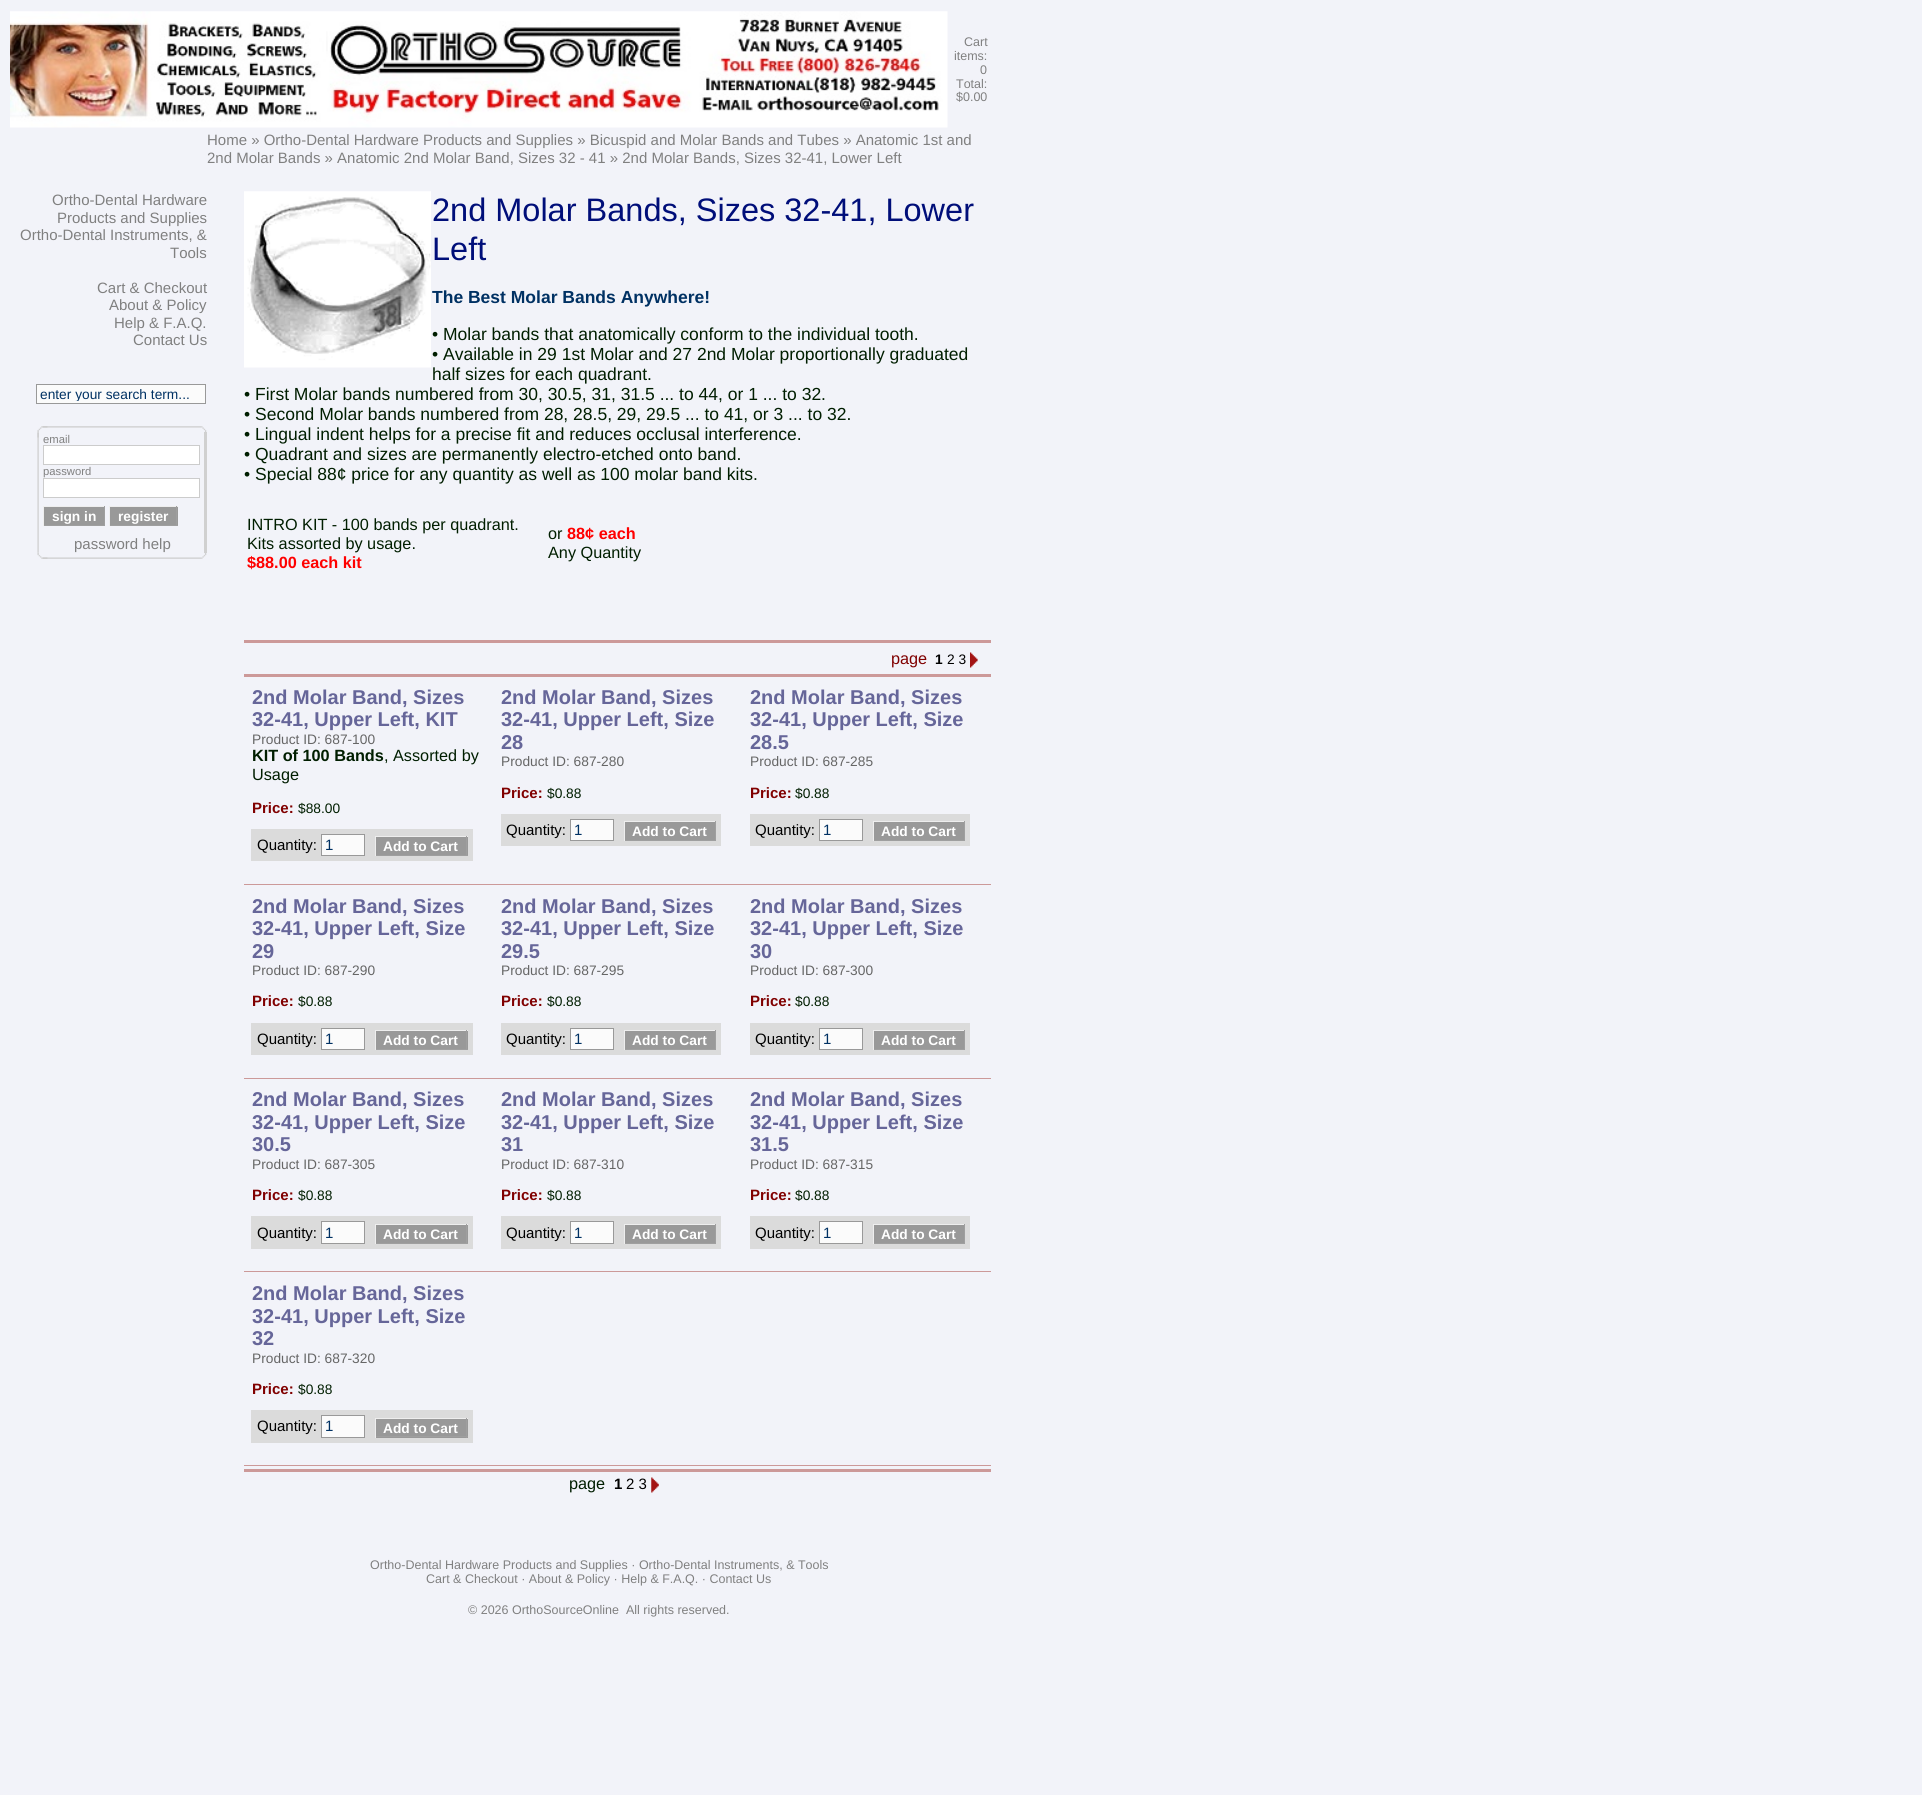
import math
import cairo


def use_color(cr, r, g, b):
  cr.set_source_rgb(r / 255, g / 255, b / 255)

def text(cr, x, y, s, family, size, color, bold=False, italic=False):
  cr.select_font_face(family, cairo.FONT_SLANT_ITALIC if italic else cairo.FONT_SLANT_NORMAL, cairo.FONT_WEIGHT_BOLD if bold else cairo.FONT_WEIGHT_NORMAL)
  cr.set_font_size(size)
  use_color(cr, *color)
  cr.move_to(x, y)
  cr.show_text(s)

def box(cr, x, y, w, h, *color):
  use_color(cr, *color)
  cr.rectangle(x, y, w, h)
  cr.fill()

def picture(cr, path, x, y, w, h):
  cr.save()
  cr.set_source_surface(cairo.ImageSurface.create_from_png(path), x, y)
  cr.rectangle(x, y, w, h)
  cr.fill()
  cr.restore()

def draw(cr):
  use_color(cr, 242, 243, 249)
  cr.paint()
  picture(cr, "img_01.png", 10, 11, 938, 117)
  use_color(cr, 251, 251, 251)
  cr.rectangle(36.5, 384.5, 169, 19)
  cr.fill_preserve()
  use_color(cr, 153, 153, 153)
  cr.set_line_width(1)
  cr.stroke()
  picture(cr, "img_03.png", 42, 426, 160, 2)
  picture(cr, "img_06.png", 37, 432, 2, 121)
  picture(cr, "img_02.png", 37, 426, 6, 7)
  picture(cr, "img_04.png", 42, 426, 6, 2)
  picture(cr, "img_05.png", 201, 426, 6, 6)
  picture(cr, "img_07.png", 37, 432, 2, 6)
  use_color(cr, 255, 255, 255)
  cr.rectangle(43.5, 445.5, 156, 19)
  cr.fill_preserve()
  use_color(cr, 204, 204, 204)
  cr.stroke()
  use_color(cr, 255, 255, 255)
  cr.rectangle(43.5, 478.5, 156, 19)
  cr.fill_preserve()
  use_color(cr, 204, 204, 204)
  cr.stroke()
  box(cr, 44, 507, 60, 18, 153, 153, 153)
  box(cr, 43, 506, 62, 1, 238, 238, 238)
  box(cr, 104, 506, 1, 20, 159, 159, 159)
  box(cr, 43, 525, 62, 1, 159, 159, 159)
  box(cr, 43, 506, 1, 20, 238, 238, 238)
  box(cr, 110, 507, 68, 18, 153, 153, 153)
  box(cr, 109, 506, 69, 1, 238, 238, 238)
  box(cr, 176, 506, 1, 20, 159, 159, 159)
  box(cr, 109, 525, 69, 1, 159, 159, 159)
  box(cr, 109, 506, 1, 20, 238, 238, 238)
  box(cr, 204, 432, 3, 121, 208, 208, 208)
  picture(cr, "img_09.png", 42, 557, 160, 2)
  picture(cr, "img_08.png", 37, 552, 6, 7)
  picture(cr, "img_10.png", 42, 557, 6, 2)
  picture(cr, "img_11.png", 201, 553, 6, 6)
  picture(cr, "img_12.png", 244, 191, 187, 177)
  box(cr, 244, 640, 747, 3, 204, 153, 153)
  picture(cr, "img_13.png", 970, 652, 8, 16)
  box(cr, 244, 674, 747, 3, 204, 153, 153)
  box(cr, 251, 829, 222, 32, 219, 219, 219)
  use_color(cr, 251, 251, 251)
  cr.rectangle(321.5, 834.5, 43, 21)
  cr.fill_preserve()
  use_color(cr, 153, 153, 153)
  cr.stroke()
  box(cr, 376, 837, 92, 18, 153, 153, 153)
  box(cr, 375, 836, 93, 1, 238, 238, 238)
  box(cr, 466, 836, 1, 20, 159, 159, 159)
  box(cr, 375, 855, 93, 1, 159, 159, 159)
  box(cr, 375, 836, 1, 20, 238, 238, 238)
  box(cr, 501, 814, 220, 32, 219, 219, 219)
  use_color(cr, 251, 251, 251)
  cr.rectangle(570.5, 819.5, 43, 21)
  cr.fill_preserve()
  use_color(cr, 153, 153, 153)
  cr.stroke()
  box(cr, 625, 822, 90, 18, 153, 153, 153)
  box(cr, 624, 821, 92, 1, 238, 238, 238)
  box(cr, 715, 821, 1, 20, 159, 159, 159)
  box(cr, 624, 840, 92, 1, 159, 159, 159)
  box(cr, 624, 821, 1, 20, 238, 238, 238)
  box(cr, 750, 814, 220, 32, 219, 219, 219)
  use_color(cr, 251, 251, 251)
  cr.rectangle(819.5, 819.5, 43, 21)
  cr.fill_preserve()
  use_color(cr, 153, 153, 153)
  cr.stroke()
  box(cr, 874, 822, 90, 18, 153, 153, 153)
  box(cr, 873, 821, 92, 1, 238, 238, 238)
  box(cr, 964, 821, 1, 20, 159, 159, 159)
  box(cr, 873, 840, 92, 1, 159, 159, 159)
  box(cr, 873, 821, 1, 20, 238, 238, 238)
  box(cr, 244, 884, 747, 1, 204, 153, 153)
  box(cr, 251, 1023, 222, 32, 219, 219, 219)
  use_color(cr, 251, 251, 251)
  cr.rectangle(321.5, 1028.5, 43, 21)
  cr.fill_preserve()
  use_color(cr, 153, 153, 153)
  cr.stroke()
  box(cr, 376, 1031, 92, 18, 153, 153, 153)
  box(cr, 375, 1030, 93, 1, 238, 238, 238)
  box(cr, 466, 1030, 1, 20, 159, 159, 159)
  box(cr, 375, 1049, 93, 1, 159, 159, 159)
  box(cr, 375, 1030, 1, 20, 238, 238, 238)
  box(cr, 501, 1023, 220, 32, 219, 219, 219)
  use_color(cr, 251, 251, 251)
  cr.rectangle(570.5, 1028.5, 43, 21)
  cr.fill_preserve()
  use_color(cr, 153, 153, 153)
  cr.stroke()
  box(cr, 625, 1031, 90, 18, 153, 153, 153)
  box(cr, 624, 1030, 92, 1, 238, 238, 238)
  box(cr, 715, 1030, 1, 20, 159, 159, 159)
  box(cr, 624, 1049, 92, 1, 159, 159, 159)
  box(cr, 624, 1030, 1, 20, 238, 238, 238)
  box(cr, 750, 1023, 220, 32, 219, 219, 219)
  use_color(cr, 251, 251, 251)
  cr.rectangle(819.5, 1028.5, 43, 21)
  cr.fill_preserve()
  use_color(cr, 153, 153, 153)
  cr.stroke()
  box(cr, 874, 1031, 90, 18, 153, 153, 153)
  box(cr, 873, 1030, 92, 1, 238, 238, 238)
  box(cr, 964, 1030, 1, 20, 159, 159, 159)
  box(cr, 873, 1049, 92, 1, 159, 159, 159)
  box(cr, 873, 1030, 1, 20, 238, 238, 238)
  box(cr, 244, 1078, 747, 1, 204, 153, 153)
  box(cr, 251, 1216, 222, 33, 219, 219, 219)
  use_color(cr, 251, 251, 251)
  cr.rectangle(321.5, 1221.5, 43, 22)
  cr.fill_preserve()
  use_color(cr, 153, 153, 153)
  cr.stroke()
  box(cr, 376, 1225, 92, 18, 153, 153, 153)
  box(cr, 375, 1224, 93, 1, 238, 238, 238)
  box(cr, 466, 1224, 1, 20, 159, 159, 159)
  box(cr, 375, 1243, 93, 1, 159, 159, 159)
  box(cr, 375, 1224, 1, 20, 238, 238, 238)
  box(cr, 501, 1216, 220, 33, 219, 219, 219)
  use_color(cr, 251, 251, 251)
  cr.rectangle(570.5, 1221.5, 43, 22)
  cr.fill_preserve()
  use_color(cr, 153, 153, 153)
  cr.stroke()
  box(cr, 625, 1225, 90, 18, 153, 153, 153)
  box(cr, 624, 1224, 92, 1, 238, 238, 238)
  box(cr, 715, 1224, 1, 20, 159, 159, 159)
  box(cr, 624, 1243, 92, 1, 159, 159, 159)
  box(cr, 624, 1224, 1, 20, 238, 238, 238)
  box(cr, 750, 1216, 220, 33, 219, 219, 219)
  use_color(cr, 251, 251, 251)
  cr.rectangle(819.5, 1221.5, 43, 22)
  cr.fill_preserve()
  use_color(cr, 153, 153, 153)
  cr.stroke()
  box(cr, 874, 1225, 90, 18, 153, 153, 153)
  box(cr, 873, 1224, 92, 1, 238, 238, 238)
  box(cr, 964, 1224, 1, 20, 159, 159, 159)
  box(cr, 873, 1243, 92, 1, 159, 159, 159)
  box(cr, 873, 1224, 1, 20, 238, 238, 238)
  box(cr, 244, 1271, 747, 1, 204, 153, 153)
  box(cr, 251, 1410, 222, 33, 219, 219, 219)
  use_color(cr, 251, 251, 251)
  cr.rectangle(321.5, 1415.5, 43, 22)
  cr.fill_preserve()
  use_color(cr, 153, 153, 153)
  cr.stroke()
  box(cr, 376, 1419, 92, 19, 153, 153, 153)
  box(cr, 375, 1418, 93, 1, 238, 238, 238)
  box(cr, 466, 1418, 1, 20, 159, 159, 159)
  box(cr, 375, 1436, 93, 1, 159, 159, 159)
  box(cr, 375, 1418, 1, 20, 238, 238, 238)
  box(cr, 244, 1465, 747, 1, 204, 153, 153)
  box(cr, 244, 1469, 747, 3, 204, 153, 153)
  picture(cr, "img_14.png", 651, 1477, 8, 16)
  text(cr, 964, 46, "Cart", "Liberation Sans", 12.5, (128, 128, 128))
  text(cr, 954, 60, "items:", "Liberation Sans", 12.5, (128, 128, 128))
  text(cr, 980, 74, "0", "Liberation Sans", 12.5, (128, 128, 128))
  text(cr, 956, 88, "Total:", "Liberation Sans", 12.5, (128, 128, 128))
  text(cr, 956, 101, "$0.00", "Liberation Sans", 12.5, (128, 128, 128))
  text(cr, 207, 145, "Home » Ortho-Dental Hardware Products and Supplies » Bicuspid and Molar Bands and Tubes » Anatomic 1st and", "Liberation Sans", 15, (128, 128, 128))
  text(cr, 207, 163, "2nd Molar Bands » Anatomic 2nd Molar Band, Sizes 32 - 41 » 2nd Molar Bands, Sizes 32-41, Lower Left", "Liberation Sans", 15, (128, 128, 128))
  text(cr, 52, 205, "Ortho-Dental Hardware", "Liberation Sans", 15, (128, 128, 128))
  text(cr, 57, 223, "Products and Supplies", "Liberation Sans", 15, (128, 128, 128))
  text(cr, 20, 240, "Ortho-Dental Instruments, &", "Liberation Sans", 15, (128, 128, 128))
  text(cr, 170, 258, "Tools", "Liberation Sans", 15, (128, 128, 128))
  text(cr, 97, 293, "Cart & Checkout", "Liberation Sans", 15, (128, 128, 128))
  text(cr, 109, 310, "About & Policy", "Liberation Sans", 15, (128, 128, 128))
  text(cr, 114, 328, "Help & F.A.Q.", "Liberation Sans", 15, (128, 128, 128))
  text(cr, 133, 345, "Contact Us", "Liberation Sans", 15, (128, 128, 128))
  cr.save()
  cr.rectangle(40, 386, 163, 15)
  cr.clip()
  text(cr, 40, 399, "enter your search term...", "Liberation Sans", 13.75, (0, 49, 99))
  cr.restore()
  text(cr, 43, 443, "email", "Liberation Sans", 11.25, (128, 128, 128))
  text(cr, 43, 475, "password", "Liberation Sans", 11.25, (128, 128, 128))
  text(cr, 52, 521, "sign in", "Liberation Sans", 13.75, (255, 255, 255), bold=True)
  text(cr, 118, 521, "register", "Liberation Sans", 13.75, (255, 255, 255), bold=True)
  text(cr, 74, 549, "password help", "Liberation Sans", 15, (128, 128, 128))
  text(cr, 432, 221, "2nd Molar Bands, Sizes 32-41, Lower", "Liberation Sans", 32.5, (0, 14, 121))
  text(cr, 432, 260, "Left", "Liberation Sans", 32.5, (0, 14, 121))
  text(cr, 432, 303, "The Best Molar Bands Anywhere!", "Liberation Sans", 17.5, (0, 49, 99), bold=True)
  text(cr, 432, 340, "• Molar bands that anatomically conform to the individual tooth.", "Liberation Sans", 17.5, (0, 30, 0))
  text(cr, 432, 360, "• Available in 29 1st Molar and 27 2nd Molar proportionally graduated", "Liberation Sans", 17.5, (0, 30, 0))
  text(cr, 432, 380, "half sizes for each quadrant.", "Liberation Sans", 17.5, (0, 30, 0))
  text(cr, 244, 400, "• First Molar bands numbered from 30, 30.5, 31, 31.5 ... to 44, or 1 ... to 32.", "Liberation Sans", 17.5, (0, 30, 0))
  text(cr, 244, 420, "• Second Molar bands numbered from 28, 28.5, 29, 29.5 ... to 41, or 3 ... to 32.", "Liberation Sans", 17.5, (0, 30, 0))
  text(cr, 244, 440, "• Lingual indent helps for a precise fit and reduces occlusal interference.", "Liberation Sans", 17.5, (0, 30, 0))
  text(cr, 244, 460, "• Quadrant and sizes are permanently electro-etched onto band.", "Liberation Sans", 17.5, (0, 30, 0))
  text(cr, 244, 480, "• Special 88¢ price for any quantity as well as 100 molar band kits.", "Liberation Sans", 17.5, (0, 30, 0))
  text(cr, 247, 530, "INTRO KIT - 100 bands per quadrant.", "Liberation Sans", 16.25, (0, 30, 0))
  text(cr, 247, 549, "Kits assorted by usage.", "Liberation Sans", 16.25, (0, 30, 0))
  text(cr, 247, 568, "$88.00 each kit", "Liberation Sans", 16.25, (255, 0, 0), bold=True)
  text(cr, 548, 539, "or", "Liberation Sans", 16.25, (0, 30, 0))
  text(cr, 567, 539, "88¢ each", "Liberation Sans", 16.25, (255, 0, 0), bold=True)
  text(cr, 548, 558, "Any Quantity", "Liberation Sans", 16.25, (0, 30, 0))
  text(cr, 891, 664, "page", "Liberation Sans", 16.25, (128, 0, 0))
  text(cr, 935, 664, "1", "Liberation Sans", 13.75, (0, 0, 0), bold=True)
  text(cr, 947, 664, "2 3", "Liberation Sans", 13.75, (0, 0, 0))
  text(cr, 252, 704, "2nd Molar Band, Sizes", "Liberation Sans", 20, (102, 102, 153), bold=True)
  text(cr, 252, 726, "32-41, Upper Left, KIT", "Liberation Sans", 20, (102, 102, 153), bold=True)
  text(cr, 252, 744, "Product ID: 687-100", "Liberation Sans", 13.75, (102, 102, 102))
  text(cr, 252, 761, "KIT of 100 Bands", "Liberation Sans", 16.25, (0, 30, 0), bold=True)
  text(cr, 384, 761, ", Assorted by", "Liberation Sans", 16.25, (0, 30, 0))
  text(cr, 252, 780, "Usage", "Liberation Sans", 16.25, (0, 30, 0))
  text(cr, 252, 813, "Price:", "Liberation Sans", 15, (128, 0, 0), bold=True)
  text(cr, 298, 813, "$88.00", "Liberation Sans", 13.75, (0, 30, 0))
  text(cr, 257, 850, "Quantity:", "Liberation Sans", 15, (0, 0, 0))
  text(cr, 325, 850, "1", "Liberation Sans", 15, (0, 49, 99))
  text(cr, 383, 851, "Add to Cart", "Liberation Sans", 13.75, (255, 255, 255), bold=True)
  text(cr, 501, 704, "2nd Molar Band, Sizes", "Liberation Sans", 20, (102, 102, 153), bold=True)
  text(cr, 501, 726, "32-41, Upper Left, Size", "Liberation Sans", 20, (102, 102, 153), bold=True)
  text(cr, 501, 749, "28", "Liberation Sans", 20, (102, 102, 153), bold=True)
  text(cr, 501, 766, "Product ID: 687-280", "Liberation Sans", 13.75, (102, 102, 102))
  text(cr, 501, 798, "Price:", "Liberation Sans", 15, (128, 0, 0), bold=True)
  text(cr, 547, 798, "$0.88", "Liberation Sans", 13.75, (0, 30, 0))
  text(cr, 506, 835, "Quantity:", "Liberation Sans", 15, (0, 0, 0))
  text(cr, 574, 835, "1", "Liberation Sans", 15, (0, 49, 99))
  text(cr, 632, 836, "Add to Cart", "Liberation Sans", 13.75, (255, 255, 255), bold=True)
  text(cr, 750, 704, "2nd Molar Band, Sizes", "Liberation Sans", 20, (102, 102, 153), bold=True)
  text(cr, 750, 726, "32-41, Upper Left, Size", "Liberation Sans", 20, (102, 102, 153), bold=True)
  text(cr, 750, 749, "28.5", "Liberation Sans", 20, (102, 102, 153), bold=True)
  text(cr, 750, 766, "Product ID: 687-285", "Liberation Sans", 13.75, (102, 102, 102))
  text(cr, 750, 798, "Price:", "Liberation Sans", 15, (128, 0, 0), bold=True)
  text(cr, 795, 798, "$0.88", "Liberation Sans", 13.75, (0, 30, 0))
  text(cr, 755, 835, "Quantity:", "Liberation Sans", 15, (0, 0, 0))
  text(cr, 823, 835, "1", "Liberation Sans", 15, (0, 49, 99))
  text(cr, 881, 836, "Add to Cart", "Liberation Sans", 13.75, (255, 255, 255), bold=True)
  text(cr, 252, 913, "2nd Molar Band, Sizes", "Liberation Sans", 20, (102, 102, 153), bold=True)
  text(cr, 252, 935, "32-41, Upper Left, Size", "Liberation Sans", 20, (102, 102, 153), bold=True)
  text(cr, 252, 958, "29", "Liberation Sans", 20, (102, 102, 153), bold=True)
  text(cr, 252, 975, "Product ID: 687-290", "Liberation Sans", 13.75, (102, 102, 102))
  text(cr, 252, 1006, "Price:", "Liberation Sans", 15, (128, 0, 0), bold=True)
  text(cr, 298, 1006, "$0.88", "Liberation Sans", 13.75, (0, 30, 0))
  text(cr, 257, 1044, "Quantity:", "Liberation Sans", 15, (0, 0, 0))
  text(cr, 325, 1044, "1", "Liberation Sans", 15, (0, 49, 99))
  text(cr, 383, 1045, "Add to Cart", "Liberation Sans", 13.75, (255, 255, 255), bold=True)
  text(cr, 501, 913, "2nd Molar Band, Sizes", "Liberation Sans", 20, (102, 102, 153), bold=True)
  text(cr, 501, 935, "32-41, Upper Left, Size", "Liberation Sans", 20, (102, 102, 153), bold=True)
  text(cr, 501, 958, "29.5", "Liberation Sans", 20, (102, 102, 153), bold=True)
  text(cr, 501, 975, "Product ID: 687-295", "Liberation Sans", 13.75, (102, 102, 102))
  text(cr, 501, 1006, "Price:", "Liberation Sans", 15, (128, 0, 0), bold=True)
  text(cr, 547, 1006, "$0.88", "Liberation Sans", 13.75, (0, 30, 0))
  text(cr, 506, 1044, "Quantity:", "Liberation Sans", 15, (0, 0, 0))
  text(cr, 574, 1044, "1", "Liberation Sans", 15, (0, 49, 99))
  text(cr, 632, 1045, "Add to Cart", "Liberation Sans", 13.75, (255, 255, 255), bold=True)
  text(cr, 750, 913, "2nd Molar Band, Sizes", "Liberation Sans", 20, (102, 102, 153), bold=True)
  text(cr, 750, 935, "32-41, Upper Left, Size", "Liberation Sans", 20, (102, 102, 153), bold=True)
  text(cr, 750, 958, "30", "Liberation Sans", 20, (102, 102, 153), bold=True)
  text(cr, 750, 975, "Product ID: 687-300", "Liberation Sans", 13.75, (102, 102, 102))
  text(cr, 750, 1006, "Price:", "Liberation Sans", 15, (128, 0, 0), bold=True)
  text(cr, 795, 1006, "$0.88", "Liberation Sans", 13.75, (0, 30, 0))
  text(cr, 755, 1044, "Quantity:", "Liberation Sans", 15, (0, 0, 0))
  text(cr, 823, 1044, "1", "Liberation Sans", 15, (0, 49, 99))
  text(cr, 881, 1045, "Add to Cart", "Liberation Sans", 13.75, (255, 255, 255), bold=True)
  text(cr, 252, 1106, "2nd Molar Band, Sizes", "Liberation Sans", 20, (102, 102, 153), bold=True)
  text(cr, 252, 1129, "32-41, Upper Left, Size", "Liberation Sans", 20, (102, 102, 153), bold=True)
  text(cr, 252, 1151, "30.5", "Liberation Sans", 20, (102, 102, 153), bold=True)
  text(cr, 252, 1169, "Product ID: 687-305", "Liberation Sans", 13.75, (102, 102, 102))
  text(cr, 252, 1200, "Price:", "Liberation Sans", 15, (128, 0, 0), bold=True)
  text(cr, 298, 1200, "$0.88", "Liberation Sans", 13.75, (0, 30, 0))
  text(cr, 257, 1238, "Quantity:", "Liberation Sans", 15, (0, 0, 0))
  text(cr, 325, 1238, "1", "Liberation Sans", 15, (0, 49, 99))
  text(cr, 383, 1239, "Add to Cart", "Liberation Sans", 13.75, (255, 255, 255), bold=True)
  text(cr, 501, 1106, "2nd Molar Band, Sizes", "Liberation Sans", 20, (102, 102, 153), bold=True)
  text(cr, 501, 1129, "32-41, Upper Left, Size", "Liberation Sans", 20, (102, 102, 153), bold=True)
  text(cr, 501, 1151, "31", "Liberation Sans", 20, (102, 102, 153), bold=True)
  text(cr, 501, 1169, "Product ID: 687-310", "Liberation Sans", 13.75, (102, 102, 102))
  text(cr, 501, 1200, "Price:", "Liberation Sans", 15, (128, 0, 0), bold=True)
  text(cr, 547, 1200, "$0.88", "Liberation Sans", 13.75, (0, 30, 0))
  text(cr, 506, 1238, "Quantity:", "Liberation Sans", 15, (0, 0, 0))
  text(cr, 574, 1238, "1", "Liberation Sans", 15, (0, 49, 99))
  text(cr, 632, 1239, "Add to Cart", "Liberation Sans", 13.75, (255, 255, 255), bold=True)
  text(cr, 750, 1106, "2nd Molar Band, Sizes", "Liberation Sans", 20, (102, 102, 153), bold=True)
  text(cr, 750, 1129, "32-41, Upper Left, Size", "Liberation Sans", 20, (102, 102, 153), bold=True)
  text(cr, 750, 1151, "31.5", "Liberation Sans", 20, (102, 102, 153), bold=True)
  text(cr, 750, 1169, "Product ID: 687-315", "Liberation Sans", 13.75, (102, 102, 102))
  text(cr, 750, 1200, "Price:", "Liberation Sans", 15, (128, 0, 0), bold=True)
  text(cr, 795, 1200, "$0.88", "Liberation Sans", 13.75, (0, 30, 0))
  text(cr, 755, 1238, "Quantity:", "Liberation Sans", 15, (0, 0, 0))
  text(cr, 823, 1238, "1", "Liberation Sans", 15, (0, 49, 99))
  text(cr, 881, 1239, "Add to Cart", "Liberation Sans", 13.75, (255, 255, 255), bold=True)
  text(cr, 252, 1300, "2nd Molar Band, Sizes", "Liberation Sans", 20, (102, 102, 153), bold=True)
  text(cr, 252, 1323, "32-41, Upper Left, Size", "Liberation Sans", 20, (102, 102, 153), bold=True)
  text(cr, 252, 1345, "32", "Liberation Sans", 20, (102, 102, 153), bold=True)
  text(cr, 252, 1363, "Product ID: 687-320", "Liberation Sans", 13.75, (102, 102, 102))
  text(cr, 252, 1394, "Price:", "Liberation Sans", 15, (128, 0, 0), bold=True)
  text(cr, 298, 1394, "$0.88", "Liberation Sans", 13.75, (0, 30, 0))
  text(cr, 257, 1431, "Quantity:", "Liberation Sans", 15, (0, 0, 0))
  text(cr, 325, 1431, "1", "Liberation Sans", 15, (0, 49, 99))
  text(cr, 383, 1433, "Add to Cart", "Liberation Sans", 13.75, (255, 255, 255), bold=True)
  text(cr, 569, 1489, "page", "Liberation Sans", 16.25, (0, 30, 0))
  text(cr, 614, 1489, "1", "Liberation Sans", 15, (0, 0, 0), bold=True)
  text(cr, 626, 1489, "2 3", "Liberation Sans", 15, (0, 0, 0))
  text(cr, 370, 1569, "Ortho-Dental Hardware Products and Supplies · Ortho-Dental Instruments, & Tools", "Liberation Sans", 12.5, (128, 128, 128))
  text(cr, 426, 1583, "Cart & Checkout · About & Policy · Help & F.A.Q. · Contact Us", "Liberation Sans", 12.5, (128, 128, 128))
  text(cr, 468, 1614, "© 2026 OrthoSourceOnline", "Liberation Sans", 12.5, (128, 128, 128))
  text(cr, 626, 1614, "All rights reserved.", "Liberation Sans", 12.5, (128, 128, 128))


surface = cairo.ImageSurface(cairo.FORMAT_RGB24, 1922, 1795)
cr = cairo.Context(surface)
options = cairo.FontOptions()
options.set_hint_metrics(cairo.HINT_METRICS_OFF)
options.set_hint_style(cairo.HINT_STYLE_NONE)
cr.set_font_options(options)
cr.set_miter_limit(4)
draw(cr)
surface.write_to_png("out.png")
